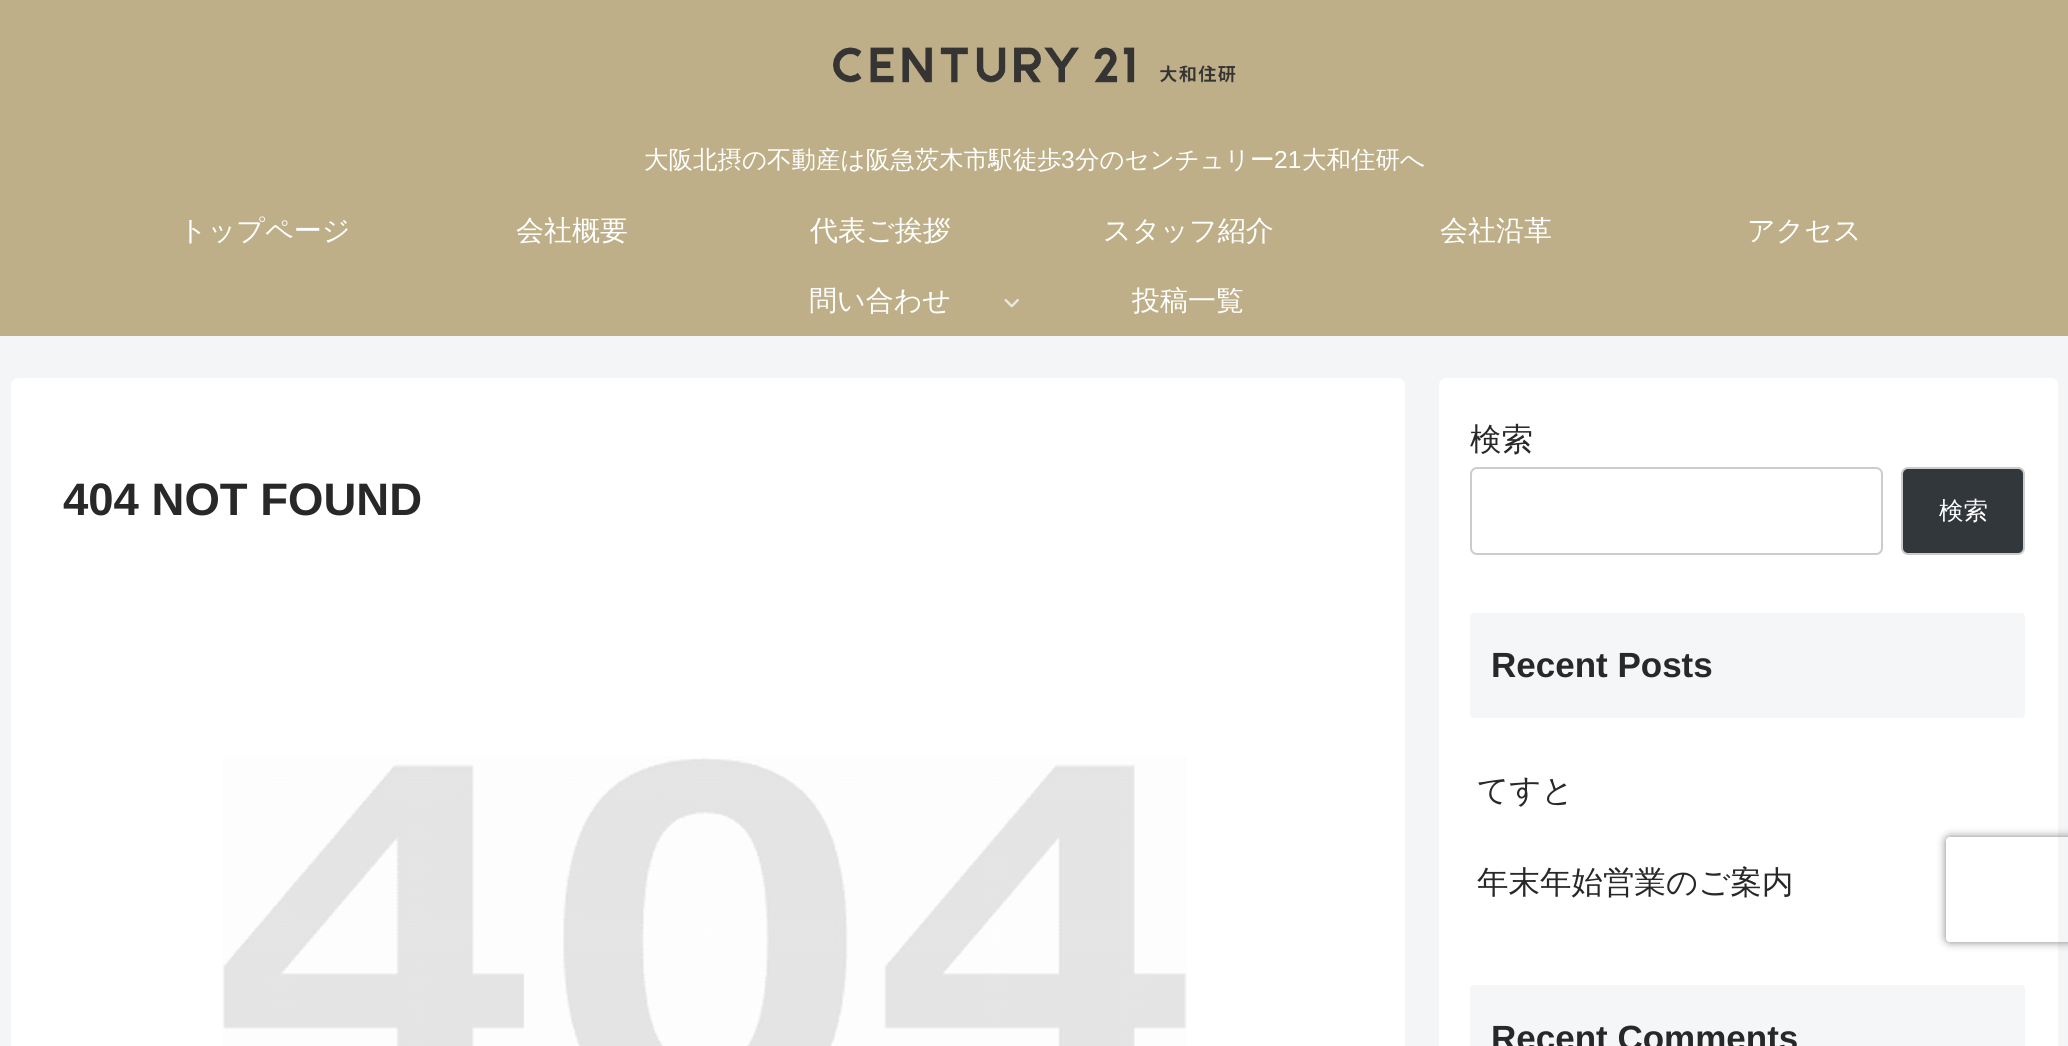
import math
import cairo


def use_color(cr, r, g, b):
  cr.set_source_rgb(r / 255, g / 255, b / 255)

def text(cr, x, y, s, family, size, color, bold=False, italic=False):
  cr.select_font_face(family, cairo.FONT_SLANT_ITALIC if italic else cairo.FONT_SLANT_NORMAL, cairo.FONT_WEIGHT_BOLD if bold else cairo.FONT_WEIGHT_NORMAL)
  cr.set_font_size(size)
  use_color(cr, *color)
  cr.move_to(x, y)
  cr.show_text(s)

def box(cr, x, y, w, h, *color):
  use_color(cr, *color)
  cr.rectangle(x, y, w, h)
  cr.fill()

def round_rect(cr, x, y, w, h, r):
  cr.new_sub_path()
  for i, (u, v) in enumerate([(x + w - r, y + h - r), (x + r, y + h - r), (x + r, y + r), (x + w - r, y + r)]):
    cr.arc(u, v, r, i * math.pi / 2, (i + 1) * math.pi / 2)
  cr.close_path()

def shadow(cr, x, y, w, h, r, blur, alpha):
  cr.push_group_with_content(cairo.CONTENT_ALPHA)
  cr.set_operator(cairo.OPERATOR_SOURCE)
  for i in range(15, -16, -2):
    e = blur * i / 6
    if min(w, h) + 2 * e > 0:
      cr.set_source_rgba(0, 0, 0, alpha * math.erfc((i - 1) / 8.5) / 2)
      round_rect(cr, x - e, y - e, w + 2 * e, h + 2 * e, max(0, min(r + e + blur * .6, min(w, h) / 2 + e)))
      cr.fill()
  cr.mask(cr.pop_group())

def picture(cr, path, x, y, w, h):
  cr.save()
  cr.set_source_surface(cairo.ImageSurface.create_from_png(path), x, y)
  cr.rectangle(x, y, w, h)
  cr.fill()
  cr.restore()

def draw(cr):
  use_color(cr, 244, 245, 247)
  cr.paint()
  box(cr, 0, 0, 2068, 336, 190, 175, 136)
  picture(cr, "img_01.png", 833, 47, 403, 36)
  picture(cr, "img_02.png", 1004, 299, 15, 9)
  use_color(cr, 255, 255, 255)
  round_rect(cr, 11, 378, 1394, 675, 7)
  cr.fill()
  picture(cr, "img_03.png", 222, 757, 965, 289)
  round_rect(cr, 1439, 378, 619, 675, 7)
  cr.fill()
  round_rect(cr, 1471, 468, 411, 86, 6)
  use_color(cr, 204, 204, 204)
  cr.stroke()
  use_color(cr, 50, 55, 60)
  round_rect(cr, 1902, 468, 122, 86, 6)
  cr.fill_preserve()
  use_color(cr, 204, 204, 204)
  cr.stroke()
  use_color(cr, 245, 246, 247)
  round_rect(cr, 1470, 613, 555, 105, 4)
  cr.fill()
  round_rect(cr, 1470, 985, 555, 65, 4)
  cr.fill()
  cr.save()
  cr.set_fill_rule(cairo.FILL_RULE_EVEN_ODD)
  cr.new_path()
  cr.move_to(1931, 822)
  cr.line_to(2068, 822)
  cr.line_to(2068, 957)
  cr.line_to(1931, 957)
  cr.close_path()
  cr.move_to(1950, 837)
  cr.line_to(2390, 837)
  cr.curve_to(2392, 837, 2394, 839, 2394, 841)
  cr.line_to(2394, 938)
  cr.curve_to(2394, 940, 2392, 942, 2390, 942)
  cr.line_to(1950, 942)
  cr.curve_to(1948, 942, 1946, 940, 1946, 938)
  cr.line_to(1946, 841)
  cr.curve_to(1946, 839, 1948, 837, 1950, 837)
  cr.close_path()
  cr.clip()
  use_color(cr, 128, 128, 128)
  shadow(cr, 1946, 837, 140, 105, 4, 4.5, 1)
  cr.restore()
  text(cr, 644, 168, "大阪北摂の不動産は阪急茨木市駅徒歩", "WenQuanYi Zen Hei Medium", 24.5, (255, 255, 255))
  text(cr, 1061, 168, "3", "Liberation Sans", 24.5, (255, 255, 255))
  text(cr, 1075, 168, "分のセンチュリー", "WenQuanYi Zen Hei Medium", 24.5, (255, 255, 255))
  text(cr, 1274, 168, "21", "Liberation Sans", 24.5, (255, 255, 255))
  text(cr, 1302, 168, "大和住研へ", "WenQuanYi Zen Hei Medium", 24.5, (255, 255, 255))
  text(cr, 179, 240, "トップページ", "WenQuanYi Zen Hei Medium", 28, (255, 255, 255))
  text(cr, 516, 240, "会社概要", "WenQuanYi Zen Hei Medium", 28, (255, 255, 255))
  text(cr, 810, 240, "代表ご挨拶", "WenQuanYi Zen Hei Medium", 28, (255, 255, 255))
  text(cr, 1103, 240, "スタッフ紹介", "WenQuanYi Zen Hei Medium", 28, (255, 255, 255))
  text(cr, 1440, 240, "会社沿革", "WenQuanYi Zen Hei Medium", 28, (255, 255, 255))
  text(cr, 1747, 240, "アクセス", "WenQuanYi Zen Hei Medium", 28, (255, 255, 255))
  text(cr, 809, 310, "問い合わせ", "WenQuanYi Zen Hei Medium", 28, (255, 255, 255))
  text(cr, 1132, 310, "投稿一覧", "WenQuanYi Zen Hei Medium", 28, (255, 255, 255))
  text(cr, 63, 515, "404 NOT FOUND", "Liberation Sans", 45.5, (40, 40, 40), bold=True)
  text(cr, 1470, 450, "検索", "WenQuanYi Zen Hei Medium", 31.5, (40, 40, 40))
  text(cr, 1939, 519, "検索", "WenQuanYi Zen Hei Medium", 24.5, (255, 255, 255))
  text(cr, 1491, 677, "Recent Posts", "Liberation Sans", 35, (40, 40, 40), bold=True)
  text(cr, 1477, 801, "てすと", "WenQuanYi Zen Hei Medium", 31.5, (40, 40, 40))
  text(cr, 1477, 893, "年末年始営業のご案内", "WenQuanYi Zen Hei Medium", 31.5, (40, 40, 40))
  text(cr, 1491, 1050, "Recent Comments", "Liberation Sans", 35, (40, 40, 40), bold=True)


surface = cairo.ImageSurface(cairo.FORMAT_RGB24, 2068, 1046)
cr = cairo.Context(surface)
options = cairo.FontOptions()
options.set_hint_metrics(cairo.HINT_METRICS_OFF)
options.set_hint_style(cairo.HINT_STYLE_NONE)
cr.set_font_options(options)
cr.set_miter_limit(4)
draw(cr)
surface.write_to_png("out.png")
